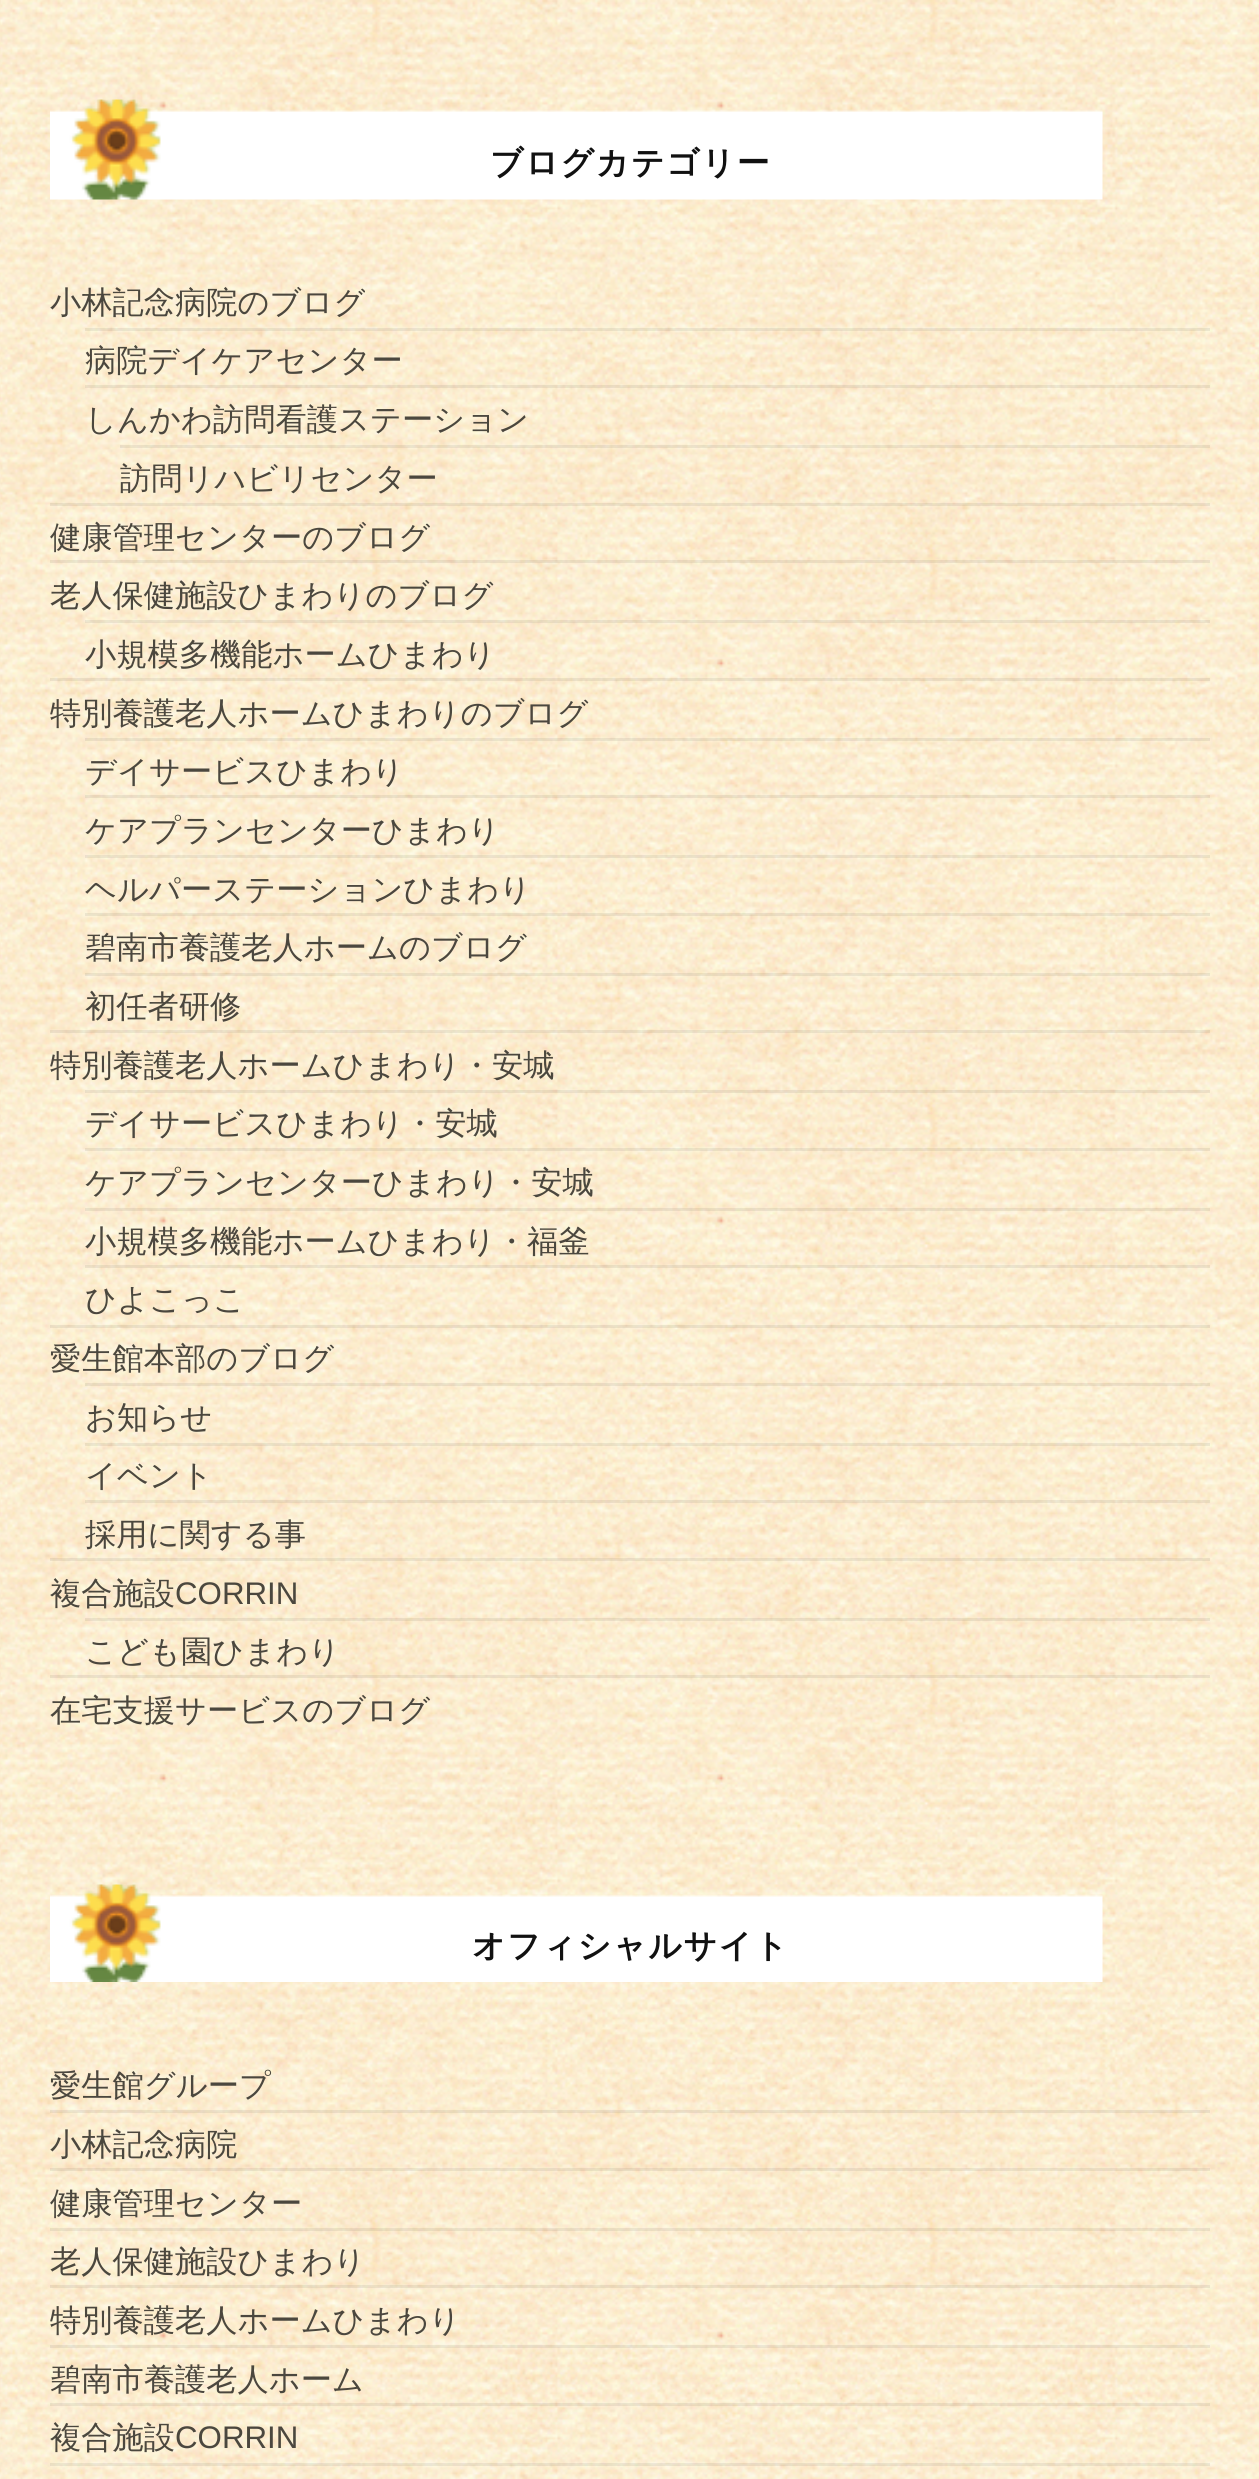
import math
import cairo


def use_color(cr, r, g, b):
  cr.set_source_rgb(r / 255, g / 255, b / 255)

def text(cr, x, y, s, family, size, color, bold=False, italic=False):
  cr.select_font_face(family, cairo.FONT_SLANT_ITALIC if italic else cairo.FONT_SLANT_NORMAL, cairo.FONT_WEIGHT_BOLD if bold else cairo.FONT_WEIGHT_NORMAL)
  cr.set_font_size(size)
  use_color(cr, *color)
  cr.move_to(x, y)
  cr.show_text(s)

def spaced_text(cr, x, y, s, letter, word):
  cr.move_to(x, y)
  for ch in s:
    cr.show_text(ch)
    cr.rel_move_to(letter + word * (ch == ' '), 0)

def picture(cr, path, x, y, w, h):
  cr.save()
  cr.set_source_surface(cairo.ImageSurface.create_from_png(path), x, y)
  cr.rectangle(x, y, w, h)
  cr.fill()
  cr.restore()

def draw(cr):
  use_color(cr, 255, 255, 255)
  cr.paint()
  picture(cr, "img_01.png", 0, 0, 1259, 2479)
  picture(cr, "img_02.png", 50, 99, 1053, 101)
  cr.set_source_rgba(0, 0, 0, 0.07)
  cr.rectangle(85, 328, 1125, 3)
  cr.fill()
  cr.rectangle(85, 385, 1125, 3)
  cr.fill()
  cr.rectangle(120, 445, 1090, 3)
  cr.fill()
  cr.rectangle(50, 503, 1160, 3)
  cr.fill()
  cr.rectangle(50, 560, 1160, 3)
  cr.fill()
  cr.rectangle(85, 620, 1125, 3)
  cr.fill()
  cr.rectangle(50, 678, 1160, 3)
  cr.fill()
  cr.rectangle(85, 738, 1125, 3)
  cr.fill()
  cr.rectangle(85, 795, 1125, 3)
  cr.fill()
  cr.rectangle(85, 855, 1125, 3)
  cr.fill()
  cr.rectangle(85, 913, 1125, 3)
  cr.fill()
  cr.rectangle(85, 973, 1125, 3)
  cr.fill()
  cr.rectangle(50, 1030, 1160, 3)
  cr.fill()
  cr.rectangle(85, 1090, 1125, 3)
  cr.fill()
  cr.rectangle(85, 1148, 1125, 3)
  cr.fill()
  cr.rectangle(85, 1208, 1125, 3)
  cr.fill()
  cr.rectangle(85, 1265, 1125, 3)
  cr.fill()
  cr.rectangle(50, 1325, 1160, 3)
  cr.fill()
  cr.rectangle(85, 1383, 1125, 3)
  cr.fill()
  cr.rectangle(85, 1443, 1125, 3)
  cr.fill()
  cr.rectangle(85, 1500, 1125, 3)
  cr.fill()
  cr.rectangle(50, 1558, 1160, 3)
  cr.fill()
  cr.rectangle(85, 1618, 1125, 3)
  cr.fill()
  cr.rectangle(50, 1675, 1160, 3)
  cr.fill()
  picture(cr, "img_03.png", 50, 1884, 1053, 98)
  cr.rectangle(50, 2110, 1160, 3)
  cr.fill()
  cr.rectangle(50, 2168, 1160, 3)
  cr.fill()
  cr.rectangle(50, 2228, 1160, 3)
  cr.fill()
  cr.rectangle(50, 2285, 1160, 3)
  cr.fill()
  cr.rectangle(50, 2345, 1160, 3)
  cr.fill()
  cr.rectangle(50, 2403, 1160, 3)
  cr.fill()
  cr.rectangle(50, 2463, 1160, 3)
  cr.fill()
  cr.select_font_face("WenQuanYi Zen Hei", cairo.FONT_SLANT_NORMAL, cairo.FONT_WEIGHT_BOLD)
  cr.set_font_size(32.75)
  use_color(cr, 17, 17, 17)
  spaced_text(cr, 490, 174, "ブログカテゴリー", 1.75, 0)
  text(cr, 50, 313, "小林記念病院のブログ", "WenQuanYi Zen Hei Medium", 31.25, (75, 71, 62))
  text(cr, 85, 371, "病院デイケアセンター", "WenQuanYi Zen Hei Medium", 31.25, (75, 71, 62))
  text(cr, 85, 430, "しんかわ訪問看護ステーション", "WenQuanYi Zen Hei Medium", 31.25, (75, 71, 62))
  text(cr, 120, 489, "訪問リハビリセンター", "WenQuanYi Zen Hei Medium", 31.25, (75, 71, 62))
  text(cr, 50, 548, "健康管理センターのブログ", "WenQuanYi Zen Hei Medium", 31.25, (75, 71, 62))
  text(cr, 50, 606, "老人保健施設ひまわりのブログ", "WenQuanYi Zen Hei Medium", 31.25, (75, 71, 62))
  text(cr, 85, 665, "小規模多機能ホームひまわり", "WenQuanYi Zen Hei Medium", 31.25, (75, 71, 62))
  text(cr, 50, 724, "特別養護老人ホームひまわりのブログ", "WenQuanYi Zen Hei Medium", 31.25, (75, 71, 62))
  text(cr, 85, 782, "デイサービスひまわり", "WenQuanYi Zen Hei Medium", 31.25, (75, 71, 62))
  text(cr, 85, 841, "ケアプランセンターひまわり", "WenQuanYi Zen Hei Medium", 31.25, (75, 71, 62))
  text(cr, 85, 900, "ヘルパーステーションひまわり", "WenQuanYi Zen Hei Medium", 31.25, (75, 71, 62))
  text(cr, 85, 958, "碧南市養護老人ホームのブログ", "WenQuanYi Zen Hei Medium", 31.25, (75, 71, 62))
  text(cr, 85, 1017, "初任者研修", "WenQuanYi Zen Hei Medium", 31.25, (75, 71, 62))
  text(cr, 50, 1076, "特別養護老人ホームひまわり・安城", "WenQuanYi Zen Hei Medium", 31.25, (75, 71, 62))
  text(cr, 85, 1134, "デイサービスひまわり・安城", "WenQuanYi Zen Hei Medium", 31.25, (75, 71, 62))
  text(cr, 85, 1193, "ケアプランセンターひまわり・安城", "WenQuanYi Zen Hei Medium", 31.25, (75, 71, 62))
  text(cr, 85, 1252, "小規模多機能ホームひまわり・福釜", "WenQuanYi Zen Hei Medium", 31.25, (75, 71, 62))
  text(cr, 85, 1310, "ひよこっこ", "WenQuanYi Zen Hei Medium", 31.25, (75, 71, 62))
  text(cr, 50, 1369, "愛生館本部のブログ", "WenQuanYi Zen Hei Medium", 31.25, (75, 71, 62))
  text(cr, 85, 1428, "お知らせ", "WenQuanYi Zen Hei Medium", 31.25, (75, 71, 62))
  text(cr, 85, 1486, "イベント", "WenQuanYi Zen Hei Medium", 31.25, (75, 71, 62))
  text(cr, 85, 1545, "採用に関する事", "WenQuanYi Zen Hei Medium", 31.25, (75, 71, 62))
  text(cr, 50, 1604, "複合施設", "WenQuanYi Zen Hei Medium", 31.25, (75, 71, 62))
  text(cr, 175, 1604, "CORRIN", "Liberation Sans", 31.25, (75, 71, 62))
  text(cr, 85, 1662, "こども園ひまわり", "WenQuanYi Zen Hei Medium", 31.25, (75, 71, 62))
  text(cr, 50, 1721, "在宅支援サービスのブログ", "WenQuanYi Zen Hei Medium", 31.25, (75, 71, 62))
  cr.select_font_face("WenQuanYi Zen Hei", cairo.FONT_SLANT_NORMAL, cairo.FONT_WEIGHT_BOLD)
  cr.set_font_size(32.75)
  use_color(cr, 17, 17, 17)
  spaced_text(cr, 472, 1957, "オフィシャルサイト", 1.75, 0)
  text(cr, 50, 2096, "愛生館グループ", "WenQuanYi Zen Hei Medium", 31.25, (75, 71, 62))
  text(cr, 50, 2155, "小林記念病院", "WenQuanYi Zen Hei Medium", 31.25, (75, 71, 62))
  text(cr, 50, 2214, "健康管理センター", "WenQuanYi Zen Hei Medium", 31.25, (75, 71, 62))
  text(cr, 50, 2272, "老人保健施設ひまわり", "WenQuanYi Zen Hei Medium", 31.25, (75, 71, 62))
  text(cr, 50, 2331, "特別養護老人ホームひまわり", "WenQuanYi Zen Hei Medium", 31.25, (75, 71, 62))
  text(cr, 50, 2390, "碧南市養護老人ホーム", "WenQuanYi Zen Hei Medium", 31.25, (75, 71, 62))
  text(cr, 50, 2448, "複合施設", "WenQuanYi Zen Hei Medium", 31.25, (75, 71, 62))
  text(cr, 175, 2448, "CORRIN", "Liberation Sans", 31.25, (75, 71, 62))


surface = cairo.ImageSurface(cairo.FORMAT_RGB24, 1259, 2479)
cr = cairo.Context(surface)
options = cairo.FontOptions()
options.set_hint_metrics(cairo.HINT_METRICS_OFF)
options.set_hint_style(cairo.HINT_STYLE_NONE)
cr.set_font_options(options)
cr.set_miter_limit(4)
draw(cr)
surface.write_to_png("out.png")
